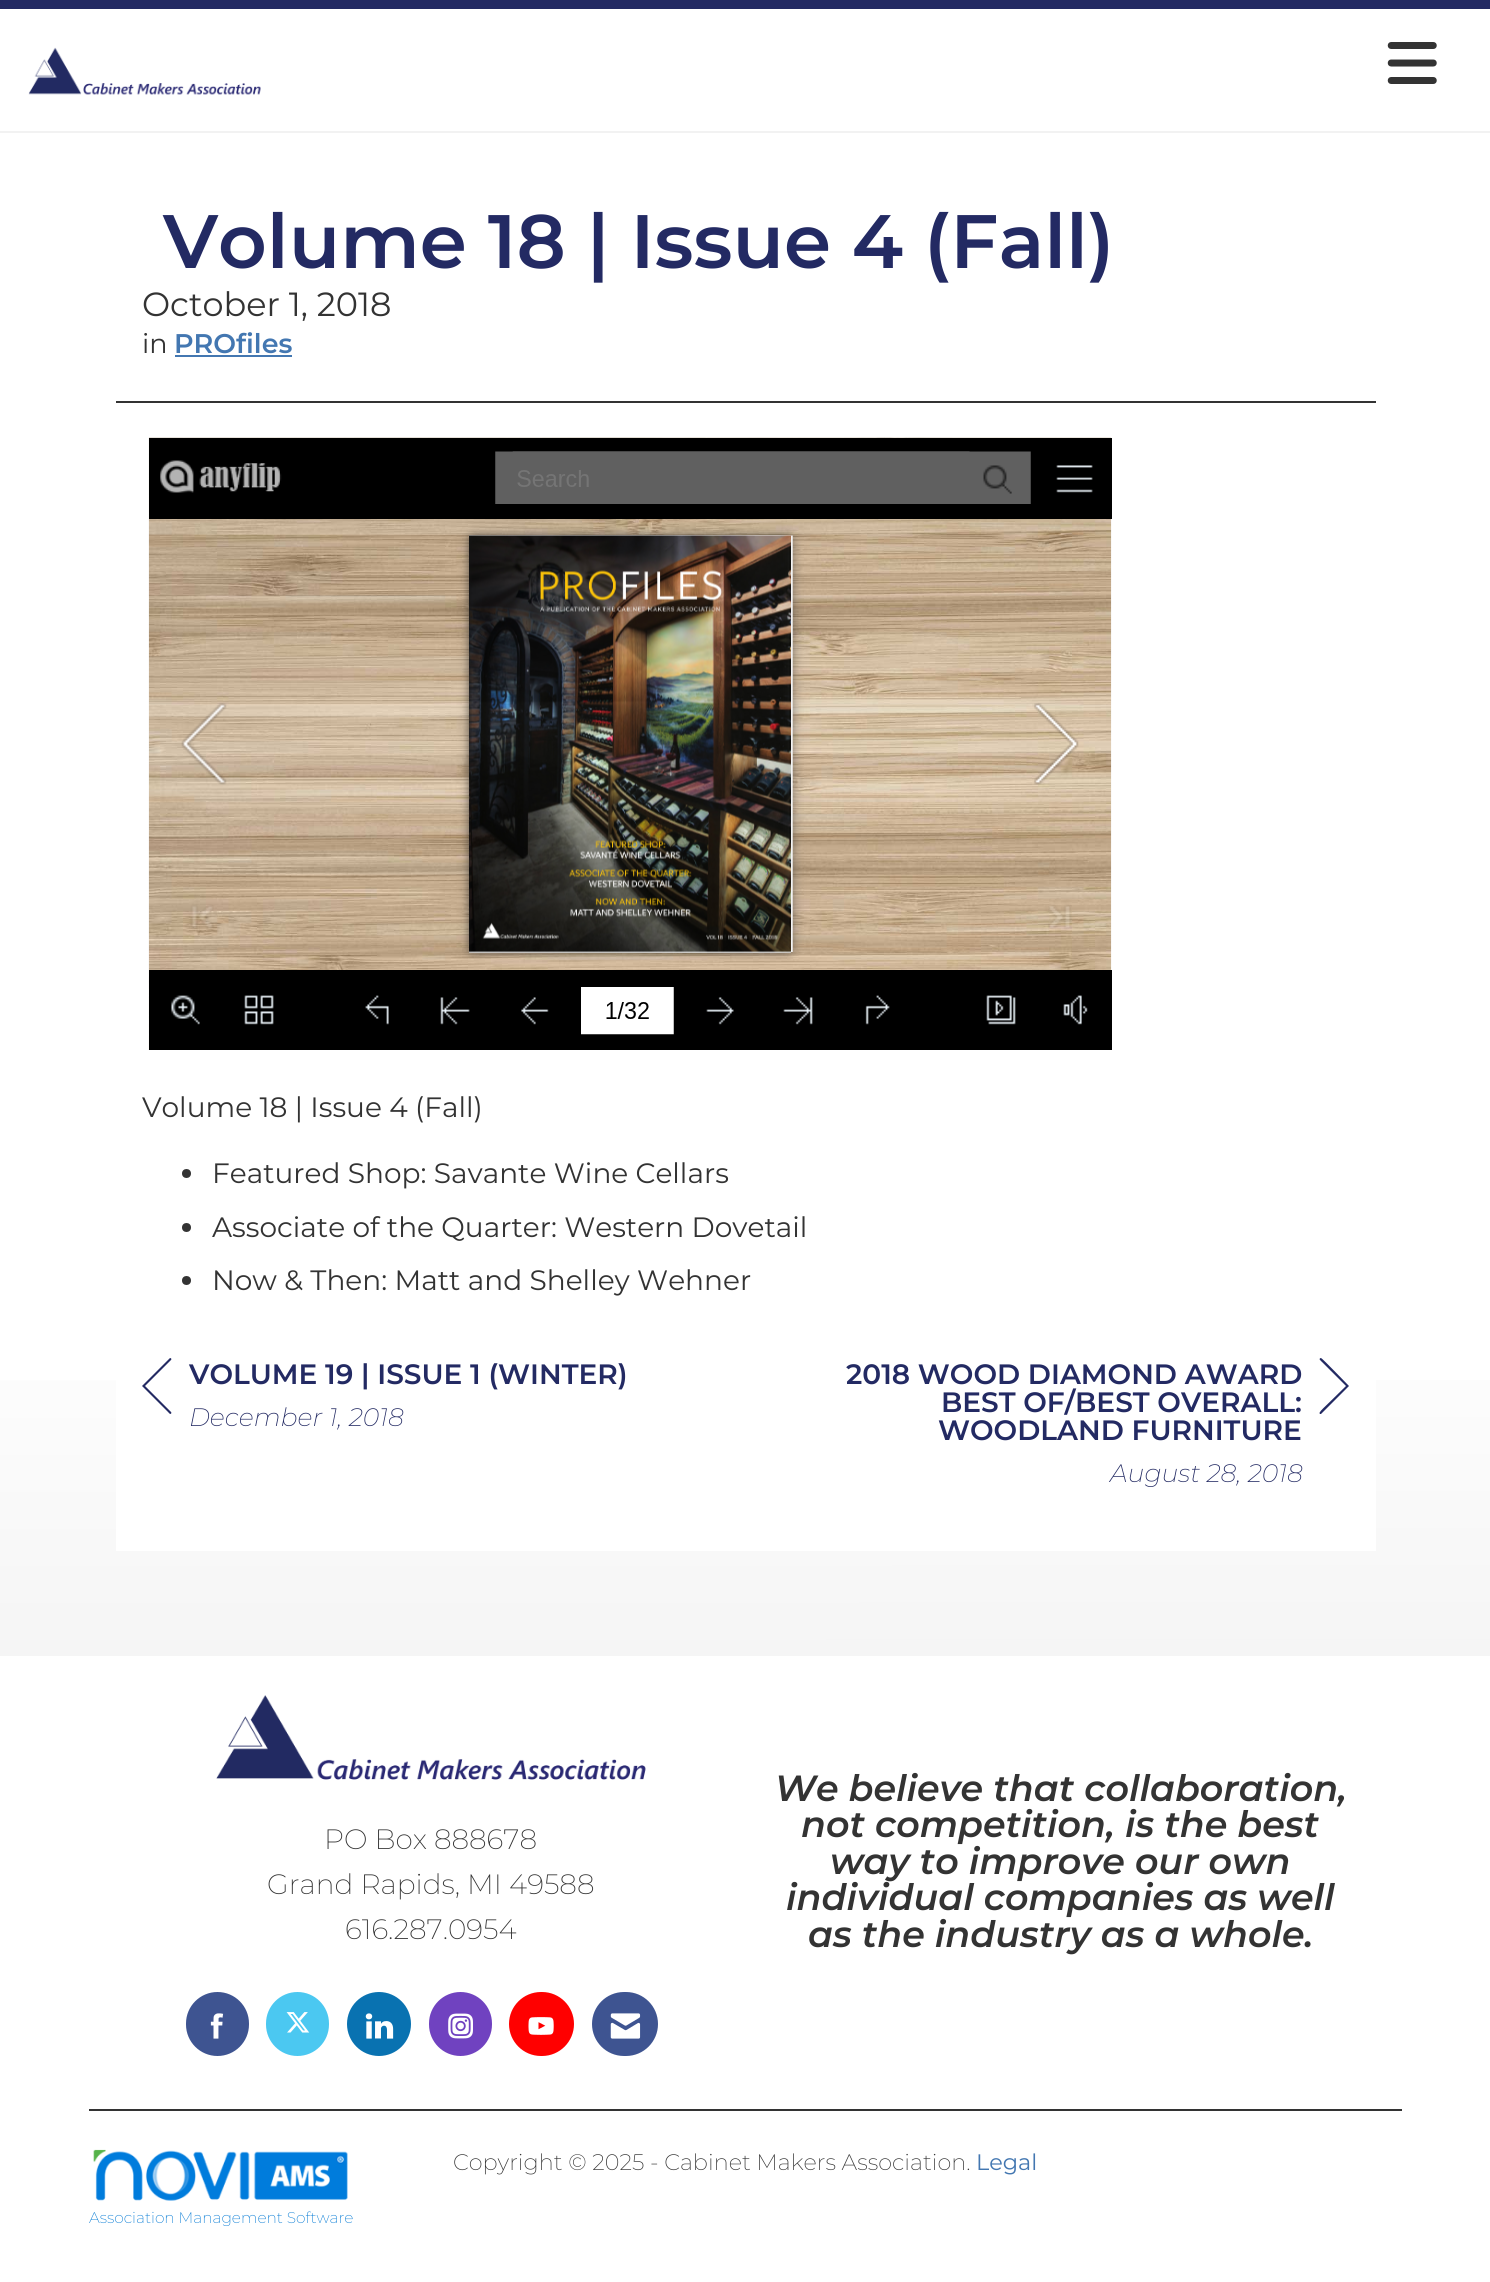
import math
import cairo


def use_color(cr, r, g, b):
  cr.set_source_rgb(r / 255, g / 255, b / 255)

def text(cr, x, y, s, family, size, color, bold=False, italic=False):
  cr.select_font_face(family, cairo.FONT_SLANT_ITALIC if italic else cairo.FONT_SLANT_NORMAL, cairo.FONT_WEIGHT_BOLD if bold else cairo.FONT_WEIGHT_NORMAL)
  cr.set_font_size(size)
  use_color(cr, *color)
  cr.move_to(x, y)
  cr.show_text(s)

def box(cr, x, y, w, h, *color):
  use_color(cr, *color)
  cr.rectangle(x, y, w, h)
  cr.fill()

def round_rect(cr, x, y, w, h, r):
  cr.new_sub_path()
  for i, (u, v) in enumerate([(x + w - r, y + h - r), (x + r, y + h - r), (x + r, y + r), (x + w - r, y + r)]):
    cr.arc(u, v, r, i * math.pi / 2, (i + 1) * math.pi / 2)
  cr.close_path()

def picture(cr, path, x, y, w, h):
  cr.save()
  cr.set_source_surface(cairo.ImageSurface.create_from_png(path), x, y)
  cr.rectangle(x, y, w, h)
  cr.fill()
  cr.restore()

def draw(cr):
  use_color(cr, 255, 255, 255)
  cr.paint()
  box(cr, 0, 0, 1490, 9, 35, 42, 99)
  box(cr, 0, 131, 1490, 2, 242, 242, 242)
  picture(cr, "img_01.png", 28, 47, 233, 48)
  picture(cr, "img_02.png", 1387, 42, 50, 42)
  gradient = cairo.LinearGradient(745, 185, 746, 1656)
  gradient.add_color_stop_rgba(0, 1, 1, 1, 1)
  gradient.add_color_stop_rgba(0.75, 1, 1, 1, 1)
  gradient.add_color_stop_rgba(1, 0.961, 0.961, 0.961, 1)
  cr.set_source(gradient)
  cr.rectangle(0, 1380, 1490, 276)
  cr.fill()
  box(cr, 116, 401, 1260, 2, 51, 51, 51)
  box(cr, 175, 355, 117, 2, 67, 119, 177)
  box(cr, 116, 1380, 1260, 171, 255, 255, 255)
  picture(cr, "img_03.png", 148, 437, 964, 613)
  use_color(cr, 51, 51, 51)
  cr.arc(186.5, 1173.5, 4.5, 0, 2 * math.pi)
  cr.fill()
  cr.arc(186.5, 1227.5, 4.5, 0, 2 * math.pi)
  cr.fill()
  cr.arc(186.5, 1280.5, 4.5, 0, 2 * math.pi)
  cr.fill()
  use_color(cr, 35, 42, 99)
  cr.new_path()
  cr.move_to(170, 1414)
  cr.line_to(142, 1386)
  cr.line_to(170, 1358)
  cr.curve_to(171, 1358, 172, 1359, 171, 1360)
  cr.line_to(145, 1386)
  cr.line_to(171, 1412)
  cr.curve_to(172, 1413, 171, 1414, 170, 1414)
  cr.close_path()
  cr.fill()
  cr.new_path()
  cr.move_to(1321, 1358)
  cr.curve_to(1322, 1358, 1346, 1383, 1349, 1386)
  cr.line_to(1321, 1414)
  cr.line_to(1320, 1414)
  cr.curve_to(1318, 1412, 1322, 1410, 1346, 1386)
  cr.line_to(1320, 1360)
  cr.curve_to(1319, 1359, 1320, 1358, 1321, 1358)
  cr.close_path()
  cr.fill()
  picture(cr, "img_04.png", 216, 1695, 430, 85)
  use_color(cr, 62, 84, 145)
  round_rect(cr, 188, 1994, 59, 60, 29.5)
  cr.fill_preserve()
  cr.set_line_width(4)
  cr.stroke()
  picture(cr, "img_05.png", 210, 2013, 14, 26)
  use_color(cr, 75, 200, 241)
  round_rect(cr, 268, 1994, 59, 60, 29.5)
  cr.fill_preserve()
  cr.stroke()
  picture(cr, "img_06.png", 286, 2012, 24, 21)
  use_color(cr, 9, 114, 177)
  cr.arc(379, 2024, 30, 0, 2 * math.pi)
  cr.fill_preserve()
  cr.stroke()
  picture(cr, "img_07.png", 365, 2013, 29, 26)
  use_color(cr, 112, 66, 192)
  round_rect(cr, 431, 1994, 59, 60, 29.5)
  cr.fill_preserve()
  cr.stroke()
  picture(cr, "img_08.png", 448, 2013, 25, 26)
  use_color(cr, 255, 0, 0)
  round_rect(cr, 511, 1994, 61, 60, 30)
  cr.fill_preserve()
  cr.stroke()
  picture(cr, "img_09.png", 528, 2017, 26, 18)
  use_color(cr, 62, 84, 145)
  round_rect(cr, 594, 1994, 62, 60, 30)
  cr.fill_preserve()
  cr.stroke()
  picture(cr, "img_10.png", 610, 2013, 31, 26)
  box(cr, 89, 2109, 1313, 2, 51, 51, 51)
  picture(cr, "img_11.png", 93, 2149, 255, 52)
  text(cr, 163, 268, "Volume 18 | Issue 4 (Fall)", "Montserrat SemiBold", 75.6, (35, 42, 99))
  text(cr, 142, 316, "October 1, 2018", "Montserrat", 33.5, (51, 51, 51))
  text(cr, 142, 353, "in", "Montserrat", 27, (51, 51, 51))
  text(cr, 174, 353, "PROfiles", "Montserrat SemiBold", 27, (67, 119, 177))
  text(cr, 142, 1117, "Volume 18 | Issue 4 (Fall)", "Montserrat", 28, (51, 51, 51))
  text(cr, 212, 1183, "Featured Shop: Savante Wine Cellars", "Montserrat", 28, (51, 51, 51))
  text(cr, 212, 1237, "Associate of the Quarter: Western Dovetail", "Montserrat", 28, (51, 51, 51))
  text(cr, 212, 1290, "Now & Then: Matt and Shelley Wehner", "Montserrat", 28, (51, 51, 51))
  text(cr, 189, 1384, "VOLUME 19 | ISSUE 1 (WINTER)", "Montserrat SemiBold", 28, (35, 42, 99))
  text(cr, 189, 1426, "December 1, 2018", "Montserrat ExtraLight", 25.25, (35, 42, 99), italic=True)
  text(cr, 846, 1384, "2018 WOOD DIAMOND AWARD", "Montserrat SemiBold", 28, (35, 42, 99))
  text(cr, 941, 1412, "BEST OF/BEST OVERALL:", "Montserrat SemiBold", 28, (35, 42, 99))
  text(cr, 938, 1440, "WOODLAND FURNITURE", "Montserrat SemiBold", 28, (35, 42, 99))
  text(cr, 1110, 1482, "August 28, 2018", "Montserrat ExtraLight", 25.25, (35, 42, 99), italic=True)
  text(cr, 324, 1849, "PO Box 888678", "Montserrat ExtraLight", 28, (51, 51, 51))
  text(cr, 267, 1894, "Grand Rapids, MI 49588", "Montserrat ExtraLight", 28, (51, 51, 51))
  text(cr, 345, 1939, "616.287.0954", "Montserrat ExtraLight", 28, (51, 51, 51))
  text(cr, 775, 1801, "We believe that collaboration,", "Montserrat SemiBold", 36.4, (51, 51, 51), italic=True)
  text(cr, 801, 1837, "not competition, is the best", "Montserrat SemiBold", 36.4, (51, 51, 51), italic=True)
  text(cr, 830, 1874, "way to improve our own", "Montserrat SemiBold", 36.4, (51, 51, 51), italic=True)
  text(cr, 786, 1910, "individual companies as well", "Montserrat SemiBold", 36.4, (51, 51, 51), italic=True)
  text(cr, 808, 1947, "as the industry as a whole.", "Montserrat SemiBold", 36.4, (51, 51, 51), italic=True)
  text(cr, 453, 2170, "Copyright © 2025 - Cabinet Makers Association.", "Montserrat ExtraLight", 22.4, (51, 51, 51))
  text(cr, 976, 2170, "Legal", "Montserrat", 22.4, (67, 119, 177))
  text(cr, 89, 2223, "Association Management Software", "Montserrat ExtraLight", 15.4, (0, 120, 212))


surface = cairo.ImageSurface(cairo.FORMAT_RGB24, 1490, 2282)
cr = cairo.Context(surface)
options = cairo.FontOptions()
options.set_hint_metrics(cairo.HINT_METRICS_OFF)
options.set_hint_style(cairo.HINT_STYLE_NONE)
cr.set_font_options(options)
cr.set_miter_limit(4)
draw(cr)
surface.write_to_png("out.png")
